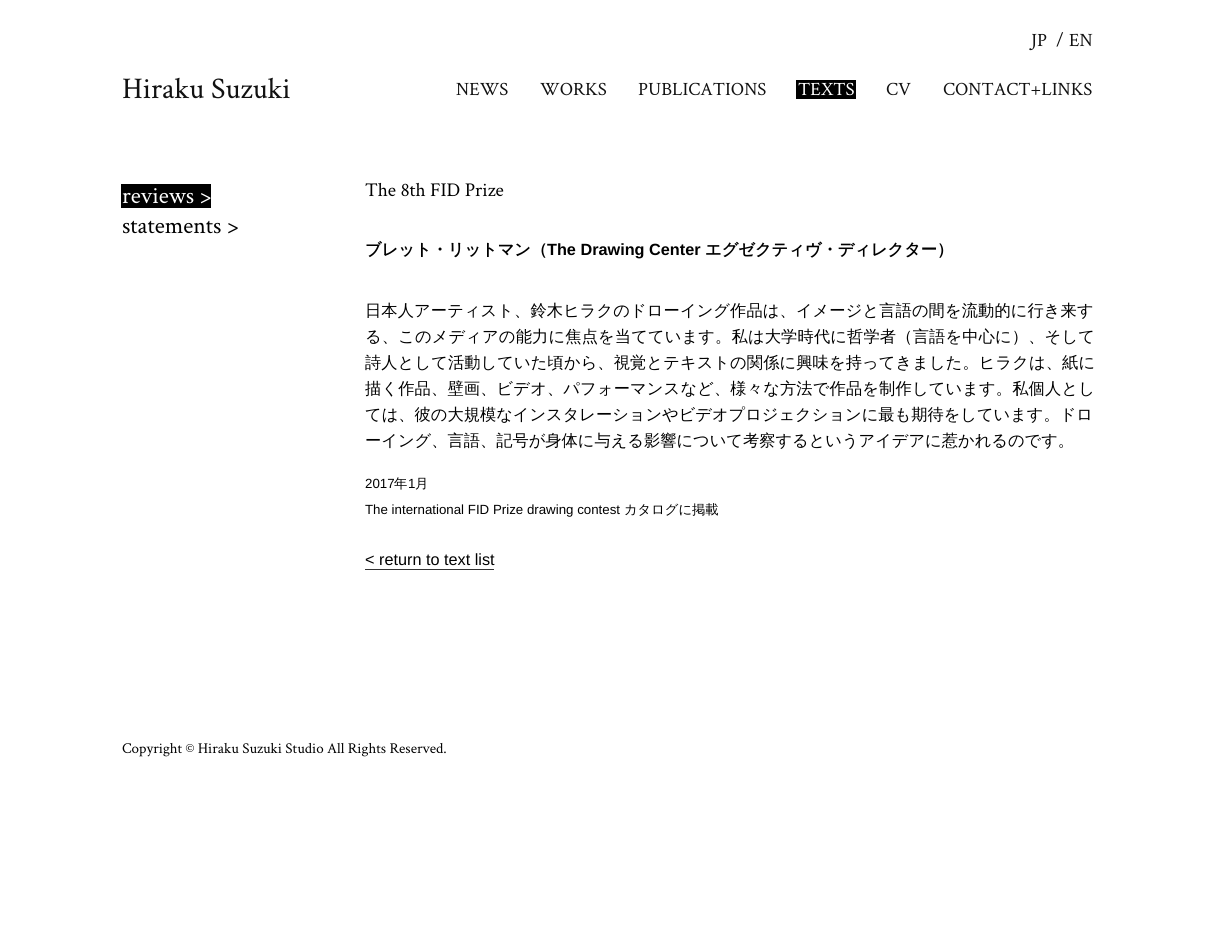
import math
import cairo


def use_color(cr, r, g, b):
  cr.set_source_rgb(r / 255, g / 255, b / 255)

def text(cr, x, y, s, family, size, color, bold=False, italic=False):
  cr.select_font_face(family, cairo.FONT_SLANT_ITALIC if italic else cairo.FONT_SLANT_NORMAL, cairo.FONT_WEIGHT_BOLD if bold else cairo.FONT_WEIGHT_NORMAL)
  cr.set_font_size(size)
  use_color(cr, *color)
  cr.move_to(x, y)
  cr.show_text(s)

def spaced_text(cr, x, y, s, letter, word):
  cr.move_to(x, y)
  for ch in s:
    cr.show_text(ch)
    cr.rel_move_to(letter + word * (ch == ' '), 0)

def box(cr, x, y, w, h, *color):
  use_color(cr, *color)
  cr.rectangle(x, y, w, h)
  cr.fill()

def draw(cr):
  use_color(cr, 255, 255, 255)
  cr.paint()
  box(cr, 796, 80, 60, 19, 0, 0, 0)
  box(cr, 121, 184, 90, 24, 0, 0, 0)
  box(cr, 365, 569, 129, 1, 51, 51, 51)
  text(cr, 1031, 46, "JP", "Crimson Text", 18.75, (17, 17, 17))
  text(cr, 1056, 46, "/", "Crimson Text", 18.75, (17, 17, 17))
  text(cr, 1069, 46, "EN", "Crimson Text", 18.75, (17, 17, 17))
  text(cr, 122, 98, "Hiraku Suzuki", "Crimson Text", 30, (17, 17, 17))
  text(cr, 456, 95, "NEWS", "Crimson Text", 18.75, (17, 17, 17))
  text(cr, 540, 95, "WORKS", "Crimson Text", 18.75, (17, 17, 17))
  text(cr, 638, 95, "PUBLICATIONS", "Crimson Text", 18.75, (17, 17, 17))
  text(cr, 798, 95, "TEXTS", "Crimson Text", 18.75, (255, 255, 255))
  text(cr, 886, 95, "CV", "Crimson Text", 18.75, (17, 17, 17))
  text(cr, 943, 95, "CONTACT+LINKS", "Crimson Text", 18.75, (17, 17, 17))
  text(cr, 122, 203, "reviews >", "Crimson Text", 23.75, (255, 255, 255))
  text(cr, 122, 233, "statements >", "Crimson Text", 23.75, (0, 0, 0))
  text(cr, 365, 196, "The 8th FID Prize", "Crimson Text", 19.5, (0, 0, 0))
  text(cr, 365, 255, "ブレット・リットマン（", "WenQuanYi Zen Hei", 16.25, (0, 0, 0), bold=True)
  text(cr, 547, 255, "The Drawing Center", "Liberation Sans", 16.25, (0, 0, 0), bold=True)
  text(cr, 705, 255, "エグゼクティヴ・ディレクター）", "WenQuanYi Zen Hei", 16.25, (0, 0, 0), bold=True)
  cr.select_font_face("WenQuanYi Zen Hei Medium")
  spaced_text(cr, 365, 316, "日本人アーティスト、鈴木ヒラクのドローイング作品は、イメージと言語の間を流動的に行き来す", 0.1, 0)
  spaced_text(cr, 365, 342, "る、このメディアの能力に焦点を当てています。私は大学時代に哲学者（言語を中心に）、そして", 0.15, 0)
  spaced_text(cr, 365, 368, "詩人として活動していた頃から、視覚とテキストの関係に興味を持ってきました。ヒラクは、紙に", 0.1, 0)
  spaced_text(cr, 365, 394, "描く作品、壁画、ビデオ、パフォーマンスなど、様々な方法で作品を制作しています。私個人とし", 0.15, 0)
  text(cr, 365, 420, "ては、彼の大規模なインスタレーションやビデオプロジェクションに最も期待をしています。ドロ", "WenQuanYi Zen Hei Medium", 16.25, (0, 0, 0))
  text(cr, 365, 446, "ーイング、言語、記号が身体に与える影響について考察するというアイデアに惹かれるのです。", "WenQuanYi Zen Hei Medium", 16.25, (0, 0, 0))
  text(cr, 365, 488, "2017", "Liberation Sans", 13.3, (0, 0, 0))
  text(cr, 394, 488, "年", "WenQuanYi Zen Hei Medium", 13.3, (0, 0, 0))
  text(cr, 408, 488, "1", "Liberation Sans", 13.3, (0, 0, 0))
  text(cr, 415, 488, "月", "WenQuanYi Zen Hei Medium", 13.3, (0, 0, 0))
  text(cr, 365, 514, "The international FID Prize drawing contest", "Liberation Sans", 13.3, (0, 0, 0))
  text(cr, 624, 514, "カタログに掲載", "WenQuanYi Zen Hei Medium", 13.3, (0, 0, 0))
  text(cr, 365, 565, "< return to text list", "Liberation Sans", 16.25, (0, 0, 0))
  text(cr, 122, 753, "Copyright © Hiraku Suzuki Studio All Rights Reserved.", "Crimson Text", 15, (0, 0, 0))


surface = cairo.ImageSurface(cairo.FORMAT_RGB24, 1214, 931)
cr = cairo.Context(surface)
options = cairo.FontOptions()
options.set_hint_metrics(cairo.HINT_METRICS_OFF)
options.set_hint_style(cairo.HINT_STYLE_NONE)
cr.set_font_options(options)
cr.set_miter_limit(4)
draw(cr)
surface.write_to_png("out.png")
